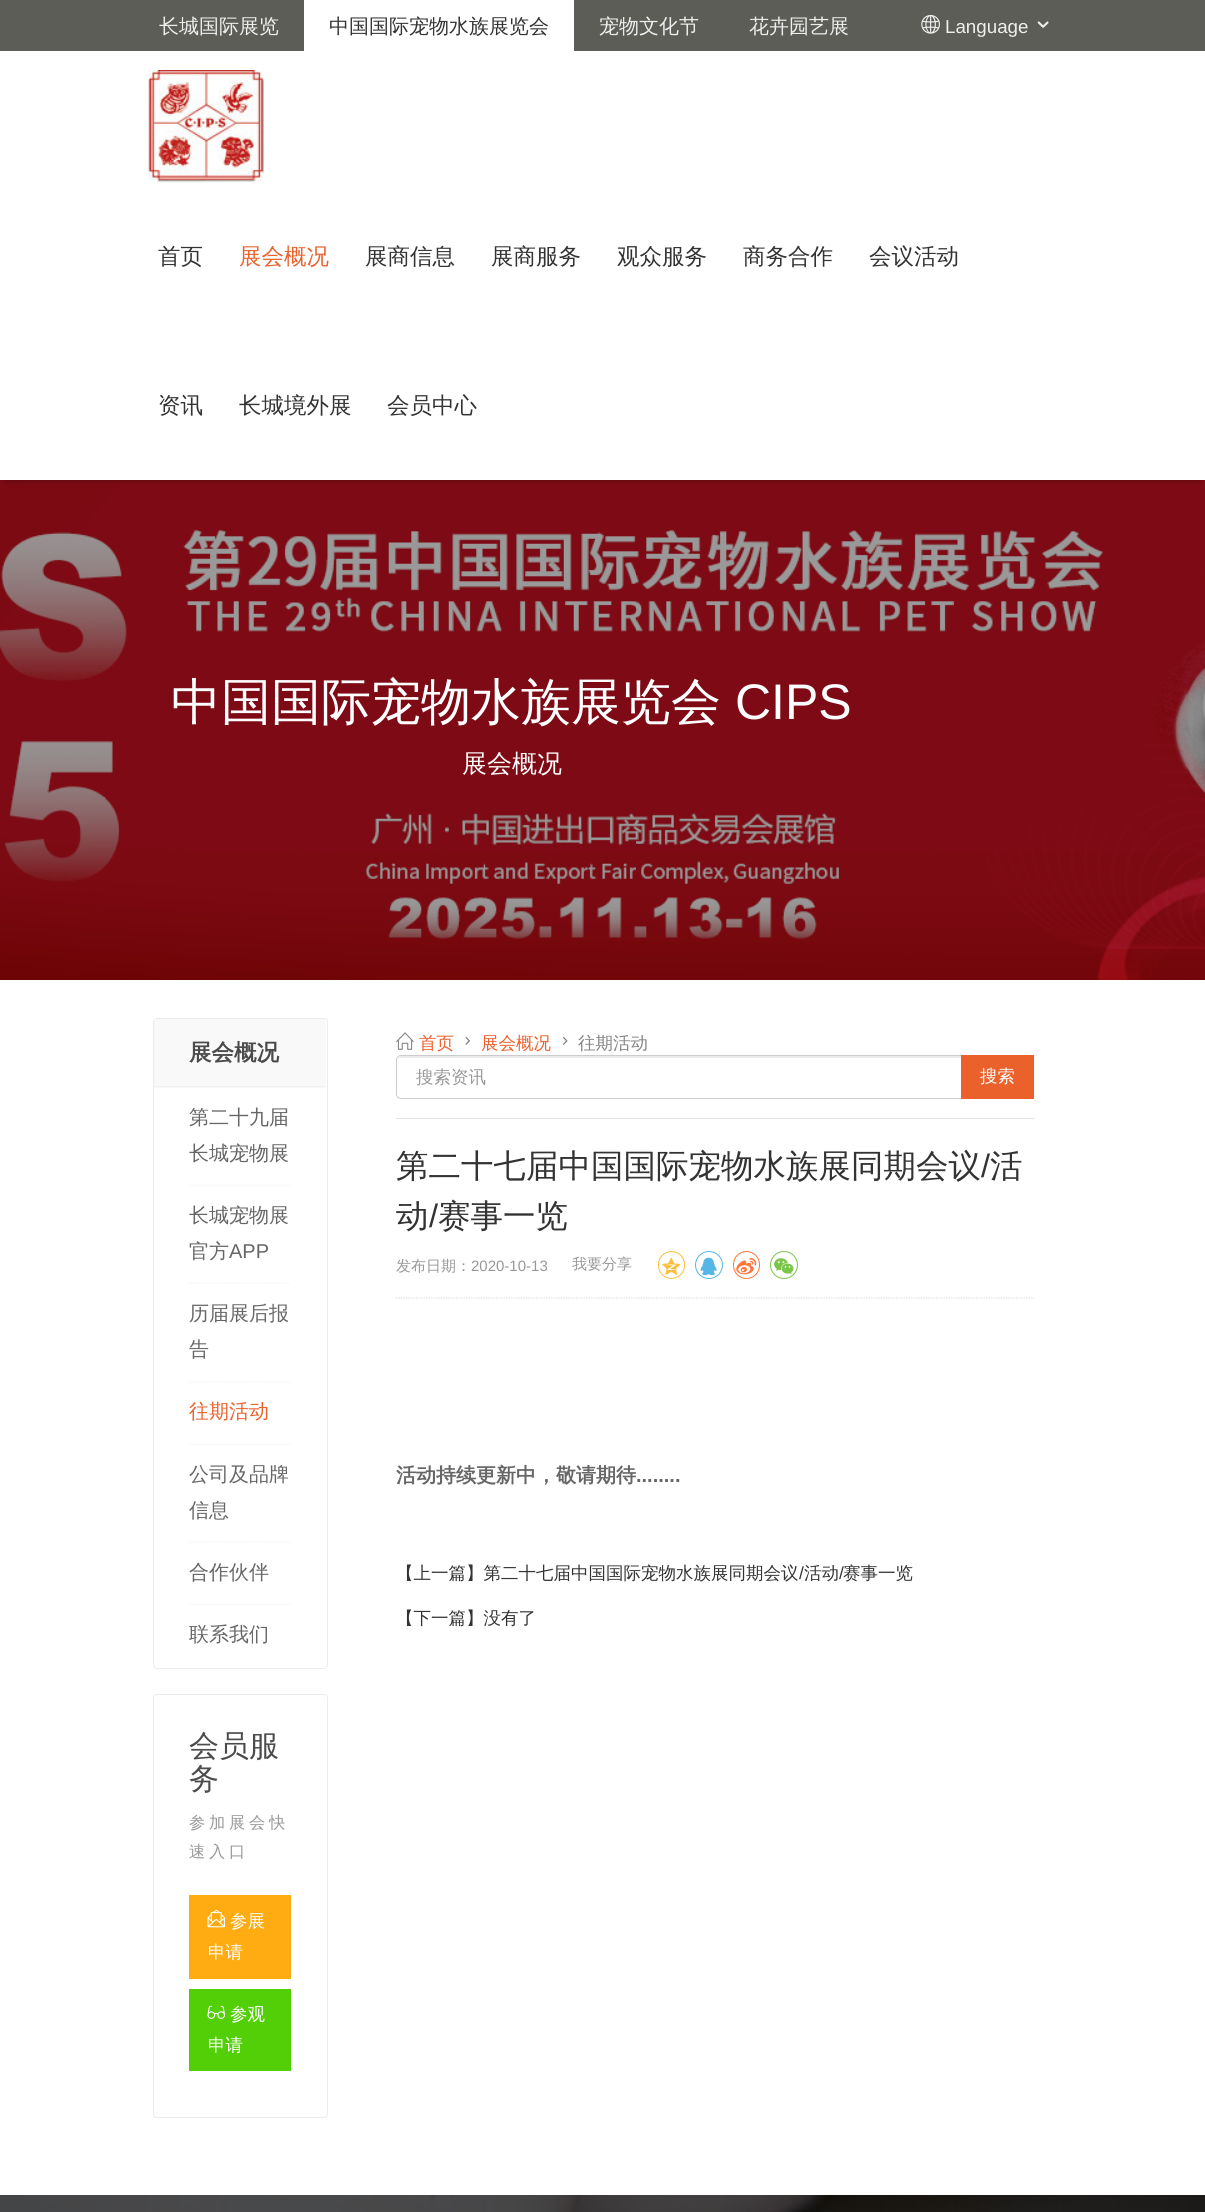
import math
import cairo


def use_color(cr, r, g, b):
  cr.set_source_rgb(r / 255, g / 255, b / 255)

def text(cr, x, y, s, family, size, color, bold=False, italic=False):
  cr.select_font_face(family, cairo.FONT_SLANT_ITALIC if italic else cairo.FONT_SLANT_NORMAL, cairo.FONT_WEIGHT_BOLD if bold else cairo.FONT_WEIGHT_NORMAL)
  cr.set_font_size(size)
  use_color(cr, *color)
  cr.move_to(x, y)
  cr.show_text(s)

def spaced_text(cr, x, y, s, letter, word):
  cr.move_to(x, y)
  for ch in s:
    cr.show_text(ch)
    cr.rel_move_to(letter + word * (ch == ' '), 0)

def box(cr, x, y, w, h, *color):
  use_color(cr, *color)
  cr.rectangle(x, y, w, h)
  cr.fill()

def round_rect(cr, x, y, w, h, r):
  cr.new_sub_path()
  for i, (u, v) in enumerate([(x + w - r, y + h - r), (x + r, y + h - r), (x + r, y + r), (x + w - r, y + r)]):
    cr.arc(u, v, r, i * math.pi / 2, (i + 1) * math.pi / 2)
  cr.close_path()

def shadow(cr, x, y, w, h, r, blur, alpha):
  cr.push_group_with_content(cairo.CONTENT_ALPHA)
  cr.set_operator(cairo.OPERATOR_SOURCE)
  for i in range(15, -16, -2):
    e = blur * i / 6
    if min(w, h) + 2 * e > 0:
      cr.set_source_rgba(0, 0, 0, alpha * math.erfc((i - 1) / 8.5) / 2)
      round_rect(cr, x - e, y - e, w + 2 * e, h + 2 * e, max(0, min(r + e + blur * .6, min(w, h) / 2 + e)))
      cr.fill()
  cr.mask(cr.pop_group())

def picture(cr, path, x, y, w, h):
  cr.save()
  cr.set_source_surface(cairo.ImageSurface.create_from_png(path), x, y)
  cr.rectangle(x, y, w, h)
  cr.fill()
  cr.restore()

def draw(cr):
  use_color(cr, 255, 255, 255)
  cr.paint()
  box(cr, 0, 0, 1205, 51, 93, 93, 88)
  box(cr, 304, 0, 270, 51, 255, 255, 255)
  picture(cr, "img_01.png", 921, 14, 19, 20)
  picture(cr, "img_02.png", 1037, 21, 12, 7)
  picture(cr, "img_04.png", 0, 480, 1205, 500)
  cr.save()
  cr.rectangle(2, 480, 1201, 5)
  cr.clip()
  use_color(cr, 0, 0, 0)
  shadow(cr, 5, 63, 1195, 418, 0, 3, 0.22)
  cr.restore()
  picture(cr, "img_03.png", 148, 70, 116, 113)
  round_rect(cr, 153.5, 1018.5, 174, 650, 3.5)
  use_color(cr, 234, 236, 239)
  cr.set_line_width(1)
  cr.stroke()
  box(cr, 154, 1019, 172, 69, 249, 249, 249)
  box(cr, 154, 1086, 172, 1, 241, 241, 241)
  cr.new_path()
  cr.move_to(189, 1185.5)
  cr.line_to(291, 1185.5)
  cr.set_line_width(1.2)
  cr.set_dash([1.25, 1.25])
  cr.stroke()
  cr.new_path()
  cr.move_to(189, 1283)
  cr.line_to(291, 1283)
  cr.stroke()
  cr.new_path()
  cr.move_to(189, 1382)
  cr.line_to(291, 1382)
  cr.stroke()
  cr.new_path()
  cr.move_to(189, 1444.5)
  cr.line_to(291, 1444.5)
  cr.stroke()
  cr.new_path()
  cr.move_to(189, 1542)
  cr.line_to(291, 1542)
  cr.stroke()
  cr.new_path()
  cr.move_to(189, 1604.5)
  cr.line_to(291, 1604.5)
  cr.stroke()
  round_rect(cr, 153.5, 1694.5, 174, 423, 3.5)
  use_color(cr, 234, 236, 239)
  cr.set_line_width(1)
  cr.set_dash([])
  cr.stroke()
  box(cr, 189, 1895, 102, 84, 255, 172, 18)
  picture(cr, "img_05.png", 207, 1909, 18, 19)
  box(cr, 189, 1989, 102, 82, 83, 207, 7)
  picture(cr, "img_06.png", 207, 2005, 18, 14)
  box(cr, 396, 1118, 638, 1, 229, 229, 229)
  picture(cr, "img_07.png", 396, 1032, 18, 18)
  picture(cr, "img_08.png", 465, 1037, 5, 8)
  picture(cr, "img_09.png", 563, 1036, 5, 9)
  use_color(cr, 236, 236, 236)
  cr.new_path()
  cr.move_to(401, 1058)
  cr.line_to(1029, 1058)
  cr.curve_to(1031, 1058, 1032, 1059, 1032, 1061)
  cr.line_to(1032, 1097)
  cr.curve_to(1032, 1096, 1033, 1095, 1033, 1094)
  cr.line_to(1033, 1060)
  cr.curve_to(1033, 1058, 1031, 1056, 1029, 1056)
  cr.line_to(402, 1056)
  cr.curve_to(400, 1056, 398, 1058, 398, 1060)
  cr.line_to(398, 1061)
  cr.curve_to(398, 1059, 399, 1058, 401, 1058)
  cr.close_path()
  cr.fill()
  round_rect(cr, 396.5, 1055.5, 637, 43, 4.5)
  use_color(cr, 204, 204, 204)
  cr.stroke()
  box(cr, 961, 1055, 73, 44, 235, 97, 44)
  cr.new_path()
  cr.move_to(396, 1298)
  cr.line_to(1034, 1298)
  use_color(cr, 221, 221, 221)
  cr.set_line_width(1.2)
  cr.set_dash([1.25, 1.25])
  cr.stroke()
  round_rect(cr, 658.5, 1251.5, 26, 27, 13)
  use_color(cr, 253, 190, 61)
  cr.set_line_width(1)
  cr.set_dash([])
  cr.stroke()
  picture(cr, "img_10.png", 662, 1257, 19, 18)
  cr.arc(709, 1265, 13.5, 0, 2 * math.pi)
  use_color(cr, 86, 182, 231)
  cr.stroke()
  picture(cr, "img_11.png", 700, 1257, 17, 19)
  round_rect(cr, 733.5, 1251.5, 26, 27, 13)
  use_color(cr, 255, 118, 59)
  cr.stroke()
  picture(cr, "img_12.png", 736, 1258, 21, 17)
  cr.arc(784, 1265, 13.5, 0, 2 * math.pi)
  use_color(cr, 123, 197, 73)
  cr.stroke()
  picture(cr, "img_13.png", 774, 1258, 20, 17)
  picture(cr, "img_14.png", 0, 2195, 1205, 17)
  text(cr, 159, 33, "长城国际展览", "WenQuanYi Zen Hei Medium", 20, (238, 238, 238))
  text(cr, 329, 33, "中国国际宠物水族展览会", "WenQuanYi Zen Hei Medium", 20, (51, 51, 51))
  text(cr, 599, 33, "宠物文化节", "WenQuanYi Zen Hei Medium", 20, (238, 238, 238))
  text(cr, 749, 33, "花卉园艺展", "WenQuanYi Zen Hei Medium", 20, (238, 238, 238))
  text(cr, 945, 33, "Language", "Liberation Sans", 18.75, (238, 238, 238))
  text(cr, 158, 264, "首页", "WenQuanYi Zen Hei Medium", 22.5, (51, 51, 51))
  text(cr, 239, 264, "展会概况", "WenQuanYi Zen Hei Medium", 22.5, (235, 97, 44))
  text(cr, 365, 264, "展商信息", "WenQuanYi Zen Hei Medium", 22.5, (51, 51, 51))
  text(cr, 491, 264, "展商服务", "WenQuanYi Zen Hei Medium", 22.5, (51, 51, 51))
  text(cr, 617, 264, "观众服务", "WenQuanYi Zen Hei Medium", 22.5, (51, 51, 51))
  text(cr, 743, 264, "商务合作", "WenQuanYi Zen Hei Medium", 22.5, (51, 51, 51))
  text(cr, 869, 264, "会议活动", "WenQuanYi Zen Hei Medium", 22.5, (51, 51, 51))
  text(cr, 158, 413, "资讯", "WenQuanYi Zen Hei Medium", 22.5, (51, 51, 51))
  text(cr, 239, 413, "长城境外展", "WenQuanYi Zen Hei Medium", 22.5, (51, 51, 51))
  text(cr, 387, 413, "会员中心", "WenQuanYi Zen Hei Medium", 22.5, (51, 51, 51))
  text(cr, 171, 719, "中国国际宠物水族展览会", "WenQuanYi Zen Hei Medium", 50, (255, 255, 255))
  text(cr, 735, 719, "CIPS", "Liberation Sans", 50, (255, 255, 255))
  text(cr, 462, 772, "展会概况", "WenQuanYi Zen Hei Medium", 25, (255, 255, 255))
  text(cr, 189, 1060, "展会概况", "WenQuanYi Zen Hei", 22.5, (75, 75, 75), bold=True)
  text(cr, 189, 1124, "第二十九届", "WenQuanYi Zen Hei Medium", 20, (102, 102, 102))
  text(cr, 189, 1160, "长城宠物展", "WenQuanYi Zen Hei Medium", 20, (102, 102, 102))
  text(cr, 189, 1222, "长城宠物展", "WenQuanYi Zen Hei Medium", 20, (102, 102, 102))
  text(cr, 189, 1258, "官方", "WenQuanYi Zen Hei Medium", 20, (102, 102, 102))
  text(cr, 229, 1258, "APP", "Liberation Sans", 20, (102, 102, 102))
  text(cr, 189, 1320, "历届展后报", "WenQuanYi Zen Hei Medium", 20, (102, 102, 102))
  text(cr, 189, 1356, "告", "WenQuanYi Zen Hei Medium", 20, (102, 102, 102))
  text(cr, 189, 1418, "往期活动", "WenQuanYi Zen Hei Medium", 20, (235, 97, 44))
  text(cr, 189, 1481, "公司及品牌", "WenQuanYi Zen Hei Medium", 20, (102, 102, 102))
  text(cr, 189, 1517, "信息", "WenQuanYi Zen Hei Medium", 20, (102, 102, 102))
  text(cr, 189, 1579, "合作伙伴", "WenQuanYi Zen Hei Medium", 20, (102, 102, 102))
  text(cr, 189, 1641, "联系我们", "WenQuanYi Zen Hei Medium", 20, (102, 102, 102))
  text(cr, 189, 1756, "会员服", "WenQuanYi Zen Hei Medium", 30, (75, 75, 75))
  text(cr, 189, 1789, "务", "WenQuanYi Zen Hei Medium", 30, (75, 75, 75))
  cr.set_font_size(16.25)
  use_color(cr, 152, 152, 152)
  spaced_text(cr, 189, 1828, "参加展会快", 3.75, 0)
  spaced_text(cr, 189, 1857, "速入口", 3.75, 0)
  text(cr, 230, 1927, "参展", "WenQuanYi Zen Hei Medium", 17.5, (255, 255, 255))
  text(cr, 208, 1958, "申请", "WenQuanYi Zen Hei Medium", 17.5, (255, 255, 255))
  text(cr, 230, 2020, "参观", "WenQuanYi Zen Hei Medium", 17.5, (255, 255, 255))
  text(cr, 208, 2051, "申请", "WenQuanYi Zen Hei Medium", 17.5, (255, 255, 255))
  text(cr, 419, 1049, "首页", "WenQuanYi Zen Hei Medium", 17.5, (235, 97, 44))
  text(cr, 481, 1049, "展会概况", "WenQuanYi Zen Hei Medium", 17.5, (235, 97, 44))
  text(cr, 578, 1049, "往期活动", "WenQuanYi Zen Hei Medium", 17.5, (132, 132, 132))
  text(cr, 416, 1083, "搜索资讯", "WenQuanYi Zen Hei Medium", 17.5, (152, 152, 152))
  text(cr, 980, 1082, "搜索", "WenQuanYi Zen Hei Medium", 17.5, (255, 255, 255))
  text(cr, 396, 1177, "第二十七届中国国际宠物水族展同期会议", "WenQuanYi Zen Hei Medium", 32.5, (51, 51, 51))
  text(cr, 981, 1177, "/", "Liberation Sans", 32.5, (51, 51, 51))
  text(cr, 990, 1177, "活", "WenQuanYi Zen Hei Medium", 32.5, (51, 51, 51))
  text(cr, 396, 1227, "动", "WenQuanYi Zen Hei Medium", 32.5, (51, 51, 51))
  text(cr, 429, 1227, "/", "Liberation Sans", 32.5, (51, 51, 51))
  text(cr, 438, 1227, "赛事一览", "WenQuanYi Zen Hei Medium", 32.5, (51, 51, 51))
  text(cr, 396, 1271, "发布日期：", "WenQuanYi Zen Hei Medium", 15, (152, 152, 152))
  text(cr, 471, 1271, "2020-10-13", "Liberation Sans", 15, (152, 152, 152))
  text(cr, 572, 1269, "我要分享", "WenQuanYi Zen Hei Medium", 15, (152, 152, 152))
  text(cr, 396, 1482, "活动持续更新中，敬请期待", "WenQuanYi Zen Hei", 20, (102, 102, 102), bold=True)
  text(cr, 636, 1482, "........", "Liberation Sans", 20, (102, 102, 102), bold=True)
  text(cr, 396, 1579, "【上一篇】第二十七届中国国际宠物水族展同期会议", "WenQuanYi Zen Hei Medium", 17.5, (51, 51, 51))
  text(cr, 799, 1579, "/", "Liberation Sans", 17.5, (51, 51, 51))
  text(cr, 804, 1579, "活动", "WenQuanYi Zen Hei Medium", 17.5, (51, 51, 51))
  text(cr, 839, 1579, "/", "Liberation Sans", 17.5, (51, 51, 51))
  text(cr, 843, 1579, "赛事一览", "WenQuanYi Zen Hei Medium", 17.5, (51, 51, 51))
  text(cr, 396, 1624, "【下一篇】没有了", "WenQuanYi Zen Hei Medium", 17.5, (51, 51, 51))


surface = cairo.ImageSurface(cairo.FORMAT_RGB24, 1205, 2212)
cr = cairo.Context(surface)
options = cairo.FontOptions()
options.set_hint_metrics(cairo.HINT_METRICS_OFF)
options.set_hint_style(cairo.HINT_STYLE_NONE)
cr.set_font_options(options)
cr.set_miter_limit(4)
draw(cr)
surface.write_to_png("out.png")
